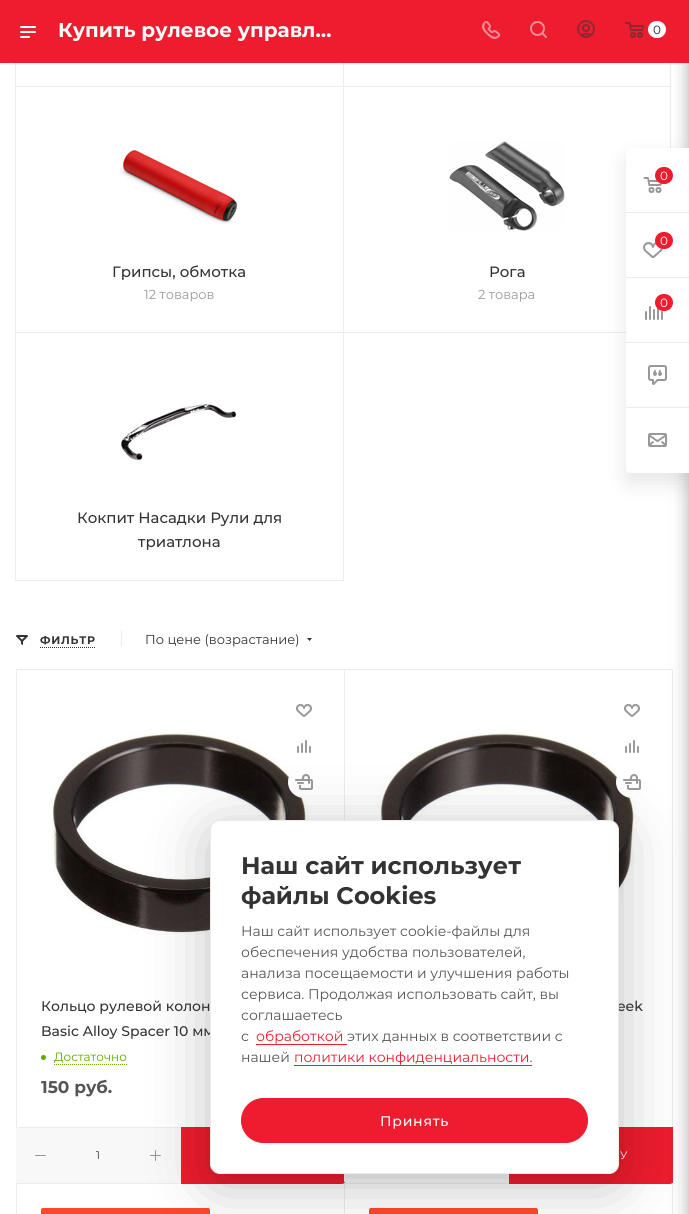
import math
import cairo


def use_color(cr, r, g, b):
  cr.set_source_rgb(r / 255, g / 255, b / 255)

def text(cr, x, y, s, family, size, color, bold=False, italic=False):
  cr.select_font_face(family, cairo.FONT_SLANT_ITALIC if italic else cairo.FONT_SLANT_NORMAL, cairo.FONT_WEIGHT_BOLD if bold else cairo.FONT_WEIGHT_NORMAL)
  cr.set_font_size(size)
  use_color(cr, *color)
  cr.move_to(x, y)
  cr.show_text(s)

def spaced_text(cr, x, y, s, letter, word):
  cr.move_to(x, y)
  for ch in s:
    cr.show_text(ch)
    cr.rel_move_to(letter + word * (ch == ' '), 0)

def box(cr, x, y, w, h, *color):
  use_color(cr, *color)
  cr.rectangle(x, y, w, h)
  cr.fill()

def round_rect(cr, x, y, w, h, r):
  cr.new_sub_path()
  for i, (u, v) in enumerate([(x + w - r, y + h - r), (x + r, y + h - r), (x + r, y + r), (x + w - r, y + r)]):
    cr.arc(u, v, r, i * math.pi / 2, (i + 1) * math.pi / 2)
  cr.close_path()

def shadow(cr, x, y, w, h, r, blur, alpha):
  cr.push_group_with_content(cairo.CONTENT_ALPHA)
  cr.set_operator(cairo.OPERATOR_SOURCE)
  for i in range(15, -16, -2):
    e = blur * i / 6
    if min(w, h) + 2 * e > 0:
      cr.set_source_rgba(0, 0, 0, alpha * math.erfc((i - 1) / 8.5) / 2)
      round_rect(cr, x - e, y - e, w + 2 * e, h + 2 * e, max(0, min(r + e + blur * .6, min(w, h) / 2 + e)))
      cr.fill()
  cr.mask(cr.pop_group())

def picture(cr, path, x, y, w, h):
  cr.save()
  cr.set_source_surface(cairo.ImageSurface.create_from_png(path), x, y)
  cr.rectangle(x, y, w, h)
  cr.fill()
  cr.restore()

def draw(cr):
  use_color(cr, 255, 255, 255)
  cr.paint()
  cr.rectangle(15.5, -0.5, 328, 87)
  use_color(cr, 236, 236, 236)
  cr.set_line_width(1)
  cr.stroke()
  cr.rectangle(343.5, -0.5, 327, 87)
  cr.stroke()
  cr.rectangle(15.5, 86.5, 328, 246)
  cr.stroke()
  cr.rectangle(343.5, 86.5, 327, 246)
  cr.stroke()
  cr.rectangle(16.5, 669.5, 328, 514)
  cr.stroke()
  cr.rectangle(344.5, 669.5, 328, 514)
  cr.stroke()
  box(cr, 509, 1128, 164, 55, 237, 28, 46)
  box(cr, 619, 1127, 54, 1, 237, 28, 46)
  cr.rectangle(16.5, 1183.5, 328, 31)
  use_color(cr, 236, 236, 236)
  cr.stroke()
  cr.rectangle(344.5, 1183.5, 328, 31)
  cr.stroke()
  cr.save()
  cr.new_path()
  cr.move_to(344, 1127)
  cr.line_to(673, 1127)
  cr.line_to(673, 1181)
  cr.curve_to(673, 1182.5, 671.5, 1184, 670, 1184)
  cr.line_to(347, 1184)
  cr.curve_to(345.5, 1184, 344, 1182.5, 344, 1181)
  cr.close_path()
  cr.clip()
  box(cr, 509, 1183, 164, 1, 237, 28, 46)
  cr.restore()
  use_color(cr, 44, 44, 44)
  shadow(cr, 689, 6, 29, 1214, 2, 9, 0.4)
  box(cr, 0, 0, 689, 63, 237, 28, 46)
  picture(cr, "img_01.png", 20, 26, 16, 12)
  picture(cr, "img_02.png", 482, 21, 18, 18)
  picture(cr, "img_03.png", 530, 21, 17, 17)
  picture(cr, "img_04.png", 577, 20, 18, 18)
  picture(cr, "img_05.png", 625, 22, 19, 16)
  use_color(cr, 255, 255, 255)
  round_rect(cr, 648, 21, 18, 17, 8.5)
  cr.fill()
  picture(cr, "img_06.png", 119, 150, 120, 74)
  picture(cr, "img_07.png", 449, 141, 117, 90)
  cr.rectangle(15.5, 332.5, 328, 248)
  use_color(cr, 236, 236, 236)
  cr.stroke()
  picture(cr, "img_08.png", 121, 404, 115, 56)
  picture(cr, "img_09.png", 16, 635, 12, 10)
  cr.new_path()
  cr.move_to(40, 647.5)
  cr.line_to(96, 647.5)
  use_color(cr, 51, 51, 51)
  cr.set_dash([1, 1])
  cr.stroke()
  box(cr, 121, 630, 1, 16, 236, 236, 236)
  use_color(cr, 51, 51, 51)
  cr.set_fill_rule(cairo.FILL_RULE_EVEN_ODD)
  cr.new_path()
  cr.move_to(307, 638)
  cr.line_to(312, 638)
  cr.line_to(309.5, 641)
  cr.close_path()
  cr.fill()
  picture(cr, "img_10.png", 296, 704, 16, 13)
  picture(cr, "img_13.png", 50, 730, 259, 205)
  picture(cr, "img_11.png", 297, 740, 14, 13)
  use_color(cr, 255, 255, 255)
  cr.arc(304, 782, 16, 0, 2 * math.pi)
  cr.fill()
  picture(cr, "img_12.png", 295, 774, 18, 16)
  use_color(cr, 95, 168, 0)
  cr.arc(43.5, 1057.5, 2.5, 0, 2 * math.pi)
  cr.fill()
  cr.new_path()
  cr.move_to(54, 1064.5)
  cr.line_to(127, 1064.5)
  cr.stroke()
  use_color(cr, 248, 248, 248)
  cr.set_fill_rule(cairo.FILL_RULE_WINDING)
  cr.new_path()
  cr.move_to(19, 1128)
  cr.line_to(178, 1128)
  cr.curve_to(180, 1128, 181, 1129, 181, 1130)
  cr.line_to(181, 1181)
  cr.curve_to(181, 1182, 180, 1183, 178, 1183)
  cr.line_to(19, 1183)
  cr.curve_to(17, 1183, 16, 1182, 16, 1181)
  cr.line_to(16, 1130)
  cr.curve_to(16, 1129, 17, 1128, 19, 1128)
  cr.close_path()
  cr.fill()
  box(cr, 18, 1127, 162, 1, 236, 236, 236)
  use_color(cr, 150, 150, 150)
  round_rect(cr, 35, 1155, 11, 1, 0.5)
  cr.fill()
  picture(cr, "img_14.png", 150, 1150, 11, 11)
  box(cr, 181, 1128, 164, 55, 237, 28, 46)
  box(cr, 181, 1127, 29, 1, 237, 28, 46)
  cr.save()
  cr.new_path()
  cr.move_to(16, 1127)
  cr.line_to(345, 1127)
  cr.line_to(345, 1181)
  cr.curve_to(345, 1182.5, 343.5, 1184, 342, 1184)
  cr.line_to(19, 1184)
  cr.curve_to(17.5, 1184, 16, 1182.5, 16, 1181)
  cr.close_path()
  cr.clip()
  box(cr, 181, 1183, 164, 1, 237, 28, 46)
  cr.restore()
  picture(cr, "img_10.png", 624, 704, 16, 13)
  picture(cr, "img_13.png", 378, 730, 259, 205)
  picture(cr, "img_11.png", 625, 740, 14, 13)
  use_color(cr, 255, 255, 255)
  cr.arc(632, 782, 16, 0, 2 * math.pi)
  cr.fill()
  picture(cr, "img_12.png", 623, 774, 18, 16)
  use_color(cr, 248, 248, 248)
  cr.new_path()
  cr.move_to(347, 1128)
  cr.line_to(506, 1128)
  cr.curve_to(508, 1128, 509, 1129, 509, 1130)
  cr.line_to(509, 1181)
  cr.curve_to(509, 1182, 508, 1183, 506, 1183)
  cr.line_to(347, 1183)
  cr.curve_to(345, 1183, 344, 1182, 344, 1181)
  cr.line_to(344, 1130)
  cr.curve_to(344, 1129, 345, 1128, 347, 1128)
  cr.close_path()
  cr.fill()
  use_color(cr, 252, 72, 45)
  round_rect(cr, 41, 1208, 169, 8, 2)
  cr.fill()
  round_rect(cr, 369, 1208, 169, 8, 2)
  cr.fill()
  use_color(cr, 0, 0, 0)
  shadow(cr, 626, 158, 63, 325, 4, 10, 0.1)
  use_color(cr, 255, 255, 255)
  cr.new_path()
  cr.move_to(630, 148)
  cr.line_to(689, 148)
  cr.line_to(689, 473)
  cr.line_to(630, 473)
  cr.curve_to(628, 473, 626, 471, 626, 469)
  cr.line_to(626, 152)
  cr.curve_to(626, 150, 628, 148, 630, 148)
  cr.close_path()
  cr.fill()
  box(cr, 626, 212, 63, 1, 236, 236, 236)
  picture(cr, "img_15.png", 643, 177, 19, 16)
  use_color(cr, 237, 28, 46)
  round_rect(cr, 655, 167, 18, 17, 8.5)
  cr.fill()
  box(cr, 626, 277, 63, 1, 236, 236, 236)
  picture(cr, "img_16.png", 643, 242, 20, 16)
  use_color(cr, 237, 28, 46)
  round_rect(cr, 655, 232, 18, 17, 8.5)
  cr.fill()
  box(cr, 626, 342, 63, 1, 236, 236, 236)
  picture(cr, "img_17.png", 645, 306, 18, 14)
  use_color(cr, 237, 28, 46)
  round_rect(cr, 655, 294, 18, 17, 8.5)
  cr.fill()
  box(cr, 626, 407, 63, 1, 236, 236, 236)
  picture(cr, "img_18.png", 648, 365, 19, 20)
  picture(cr, "img_19.png", 648, 433, 19, 14)
  use_color(cr, 0, 0, 0)
  shadow(cr, 210, 830, 409, 354, 10, 30, 0.25)
  text(cr, 58, 37, "Купить рулевое управл…", "Montserrat", 20, (255, 255, 255), bold=True)
  text(cr, 653, 34, "0", "Montserrat", 12, (34, 34, 34))
  text(cr, 112, 277, "Грипсы, обмотка", "Montserrat Medium", 15, (51, 51, 51))
  text(cr, 144, 299, "12 товаров", "Montserrat", 13, (153, 153, 153))
  text(cr, 489, 277, "Рога", "Montserrat Medium", 15, (51, 51, 51))
  text(cr, 478, 299, "2 товара", "Montserrat", 13, (153, 153, 153))
  text(cr, 77, 523, "Кокпит Насадки Рули для", "Montserrat Medium", 15, (51, 51, 51))
  text(cr, 138, 547, "триатлона", "Montserrat Medium", 15, (51, 51, 51))
  cr.select_font_face("Montserrat", cairo.FONT_SLANT_NORMAL, cairo.FONT_WEIGHT_BOLD)
  cr.set_font_size(11)
  spaced_text(cr, 40, 644, "ФИЛЬТР", 0.75, 0)
  text(cr, 145, 644, "По цене (возрастание)", "Montserrat", 13, (51, 51, 51))
  text(cr, 41, 1011, "Кольцо рулевой колон", "Montserrat Medium", 14, (51, 51, 51))
  text(cr, 41, 1036, "Basic Alloy Spacer 10 мм", "Montserrat Medium", 14, (51, 51, 51))
  text(cr, 54, 1061, "Достаточно", "Montserrat", 12, (95, 168, 0))
  text(cr, 41, 1093, "150 руб.", "Montserrat", 17, (85, 85, 85), bold=True)
  text(cr, 96, 1159, "1", "Montserrat", 11, (51, 51, 51))
  text(cr, 617, 1011, "eek", "Montserrat Medium", 14, (51, 51, 51))
  cr.select_font_face("Montserrat")
  cr.set_font_size(11)
  use_color(cr, 255, 255, 255)
  spaced_text(cr, 620, 1159, "У", 0.75, 0)
  text(cr, 660, 180, "0", "Montserrat", 12, (255, 255, 255))
  text(cr, 660, 245, "0", "Montserrat", 12, (255, 255, 255))
  text(cr, 660, 307, "0", "Montserrat", 12, (255, 255, 255))
  round_rect(cr, 210.5, 820.5, 408, 353, 9.5)
  cr.fill_preserve()
  use_color(cr, 235, 235, 235)
  cr.set_dash([])
  cr.stroke()
  text(cr, 241, 874, "Наш сайт использует", "Montserrat", 24, (51, 51, 51), bold=True)
  text(cr, 241, 904, "файлы Cookies", "Montserrat", 24, (51, 51, 51), bold=True)
  text(cr, 241, 936, "Наш сайт использует cookie-файлы для", "Montserrat", 14, (85, 85, 85))
  text(cr, 241, 957, "обеспечения удобства пользователей,", "Montserrat", 14, (85, 85, 85))
  text(cr, 241, 978, "анализа посещаемости и улучшения работы", "Montserrat", 14, (85, 85, 85))
  text(cr, 241, 999, "сервиса. Продолжая использовать сайт, вы", "Montserrat", 14, (85, 85, 85))
  text(cr, 241, 1020, "соглашаетесь", "Montserrat", 14, (85, 85, 85))
  text(cr, 241, 1041, "с", "Montserrat", 14, (85, 85, 85))
  text(cr, 256, 1041, "обработкой", "Montserrat", 14, (237, 28, 46))
  box(cr, 256, 1044, 91, 1, 237, 28, 46)
  text(cr, 347, 1041, "этих данных в соответствии с", "Montserrat", 14, (85, 85, 85))
  text(cr, 241, 1062, "нашей", "Montserrat", 14, (85, 85, 85))
  text(cr, 294, 1062, "политики конфиденциальности.", "Montserrat", 14, (237, 28, 46))
  box(cr, 294, 1065, 238, 1, 237, 28, 46)
  round_rect(cr, 241.5, 1098.5, 346, 44, 22)
  cr.fill_preserve()
  cr.stroke()
  cr.select_font_face("Montserrat Medium")
  use_color(cr, 255, 255, 255)
  spaced_text(cr, 380, 1126, "Принять", 0.75, 0)


surface = cairo.ImageSurface(cairo.FORMAT_RGB24, 689, 1214)
cr = cairo.Context(surface)
options = cairo.FontOptions()
options.set_hint_metrics(cairo.HINT_METRICS_OFF)
options.set_hint_style(cairo.HINT_STYLE_NONE)
cr.set_font_options(options)
cr.set_miter_limit(4)
draw(cr)
surface.write_to_png("out.png")
